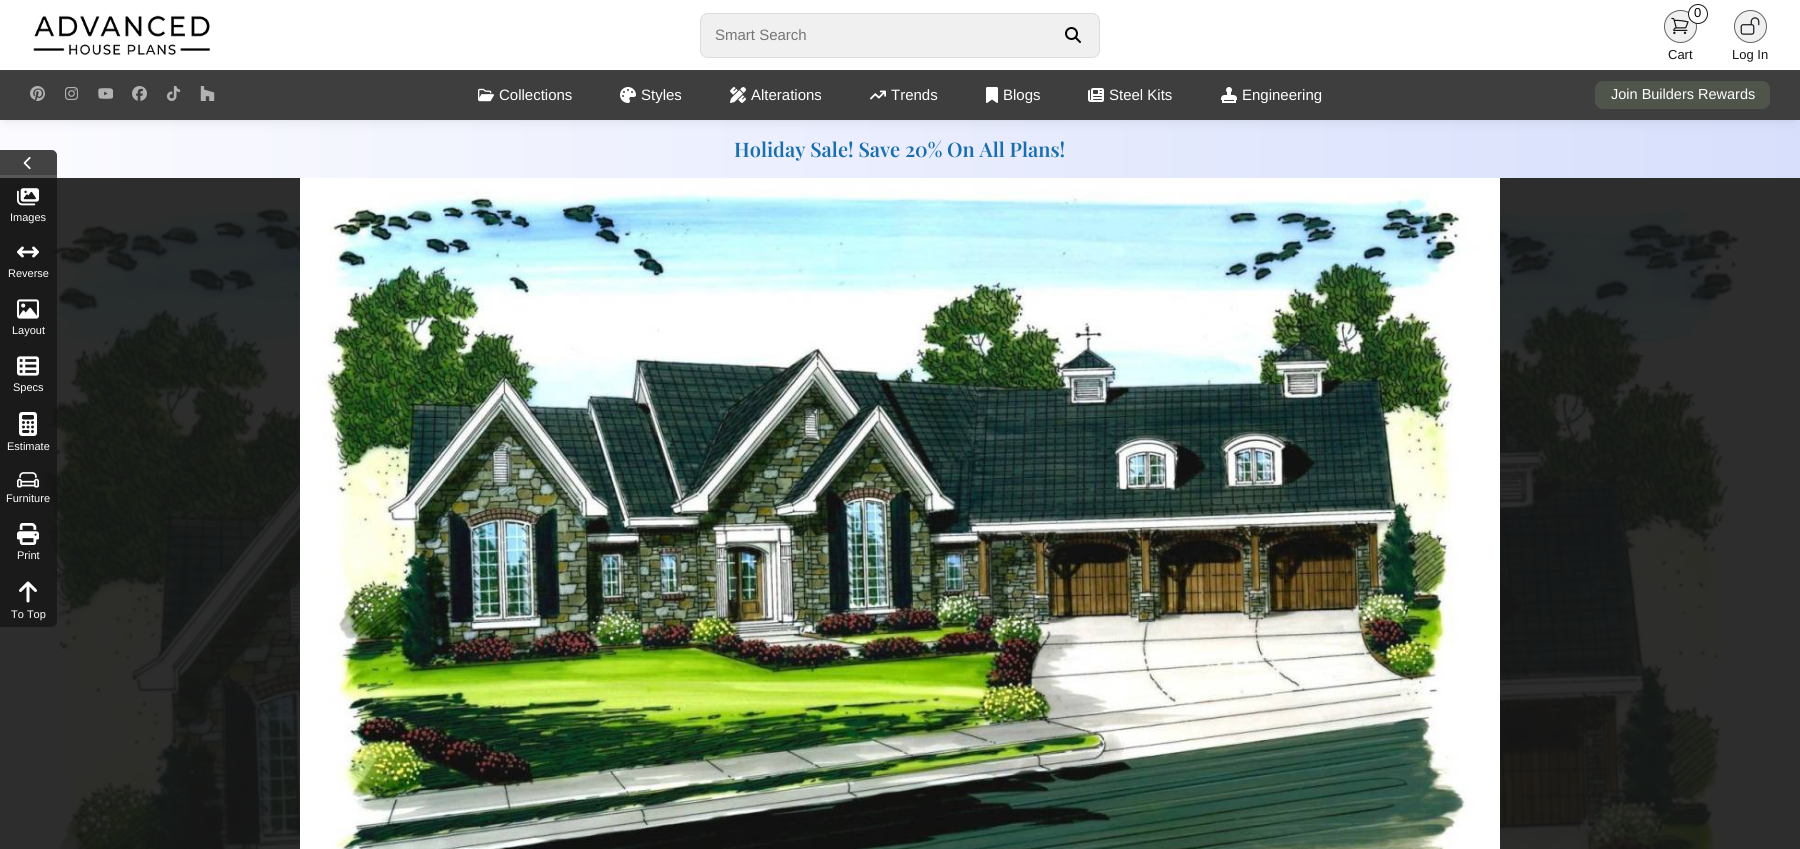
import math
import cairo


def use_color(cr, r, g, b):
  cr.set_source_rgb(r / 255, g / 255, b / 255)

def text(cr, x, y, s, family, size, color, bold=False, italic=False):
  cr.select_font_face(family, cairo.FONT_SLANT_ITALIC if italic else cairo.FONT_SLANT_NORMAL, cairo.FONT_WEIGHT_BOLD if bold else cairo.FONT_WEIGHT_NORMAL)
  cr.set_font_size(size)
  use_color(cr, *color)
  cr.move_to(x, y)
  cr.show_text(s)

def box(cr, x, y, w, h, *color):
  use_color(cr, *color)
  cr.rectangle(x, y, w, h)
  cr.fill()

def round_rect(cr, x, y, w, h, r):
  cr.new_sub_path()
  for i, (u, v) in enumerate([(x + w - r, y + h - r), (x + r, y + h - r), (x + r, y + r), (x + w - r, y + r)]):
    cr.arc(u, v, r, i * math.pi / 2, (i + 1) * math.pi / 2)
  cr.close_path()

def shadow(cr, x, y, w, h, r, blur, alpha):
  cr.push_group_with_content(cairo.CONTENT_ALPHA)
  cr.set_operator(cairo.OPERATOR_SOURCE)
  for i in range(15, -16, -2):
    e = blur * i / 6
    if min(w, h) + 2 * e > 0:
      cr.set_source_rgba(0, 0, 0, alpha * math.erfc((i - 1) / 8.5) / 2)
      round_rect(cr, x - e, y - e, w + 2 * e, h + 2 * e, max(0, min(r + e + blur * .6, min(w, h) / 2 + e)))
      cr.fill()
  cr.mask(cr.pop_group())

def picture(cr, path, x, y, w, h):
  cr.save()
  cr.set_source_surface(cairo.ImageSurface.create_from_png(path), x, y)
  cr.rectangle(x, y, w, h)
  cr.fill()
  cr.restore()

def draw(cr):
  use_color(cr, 255, 255, 255)
  cr.paint()
  gradient = cairo.LinearGradient(0, 149, 1800, 149)
  gradient.add_color_stop_rgba(0, 0.984, 0.984, 1, 1)
  gradient.add_color_stop_rgba(1, 0.843, 0.875, 0.988, 1)
  cr.set_source(gradient)
  cr.rectangle(0, 120, 1800, 58)
  cr.fill()
  use_color(cr, 0, 0, 0)
  shadow(cr, 6, 6, 1788, 108, 0, 8, 0.25)
  box(cr, 0, 0, 1800, 70, 255, 255, 255)
  picture(cr, "img_01.png", 33, 15, 177, 40)
  use_color(cr, 240, 240, 240)
  round_rect(cr, 700.5, 13.5, 399, 44, 7.5)
  cr.fill_preserve()
  use_color(cr, 224, 219, 217)
  cr.set_line_width(1)
  cr.stroke()
  picture(cr, "img_02.png", 1065, 27, 16, 16)
  use_color(cr, 240, 240, 240)
  cr.arc(1680.5, 26.5, 16, 0, 2 * math.pi)
  cr.fill_preserve()
  use_color(cr, 100, 100, 100)
  cr.stroke()
  picture(cr, "img_03.png", 1671, 17, 18, 18)
  use_color(cr, 255, 255, 255)
  cr.arc(1698, 14, 9.5, 0, 2 * math.pi)
  cr.fill_preserve()
  use_color(cr, 21, 20, 26)
  cr.stroke()
  use_color(cr, 240, 240, 240)
  cr.arc(1750.5, 26.5, 16, 0, 2 * math.pi)
  cr.fill_preserve()
  use_color(cr, 100, 100, 100)
  cr.stroke()
  picture(cr, "img_04.png", 1740, 17, 20, 18)
  box(cr, 0, 70, 1800, 50, 62, 62, 62)
  picture(cr, "img_05.png", 30, 86, 15, 15)
  picture(cr, "img_06.png", 65, 87, 13, 13)
  picture(cr, "img_07.png", 98, 88, 15, 11)
  picture(cr, "img_08.png", 132, 86, 15, 15)
  picture(cr, "img_09.png", 167, 86, 14, 15)
  picture(cr, "img_10.png", 200, 86, 15, 15)
  picture(cr, "img_11.png", 478, 88, 16, 14)
  picture(cr, "img_12.png", 620, 87, 16, 16)
  picture(cr, "img_13.png", 730, 87, 16, 16)
  picture(cr, "img_14.png", 870, 90, 16, 10)
  picture(cr, "img_15.png", 986, 87, 12, 16)
  picture(cr, "img_16.png", 1088, 88, 16, 14)
  picture(cr, "img_17.png", 1221, 87, 16, 16)
  use_color(cr, 80, 85, 76)
  round_rect(cr, 1595, 81, 175, 28, 8)
  cr.fill()
  picture(cr, "img_18.png", 0, 178, 1800, 671)
  picture(cr, "img_19.png", 300, 178, 1200, 671)
  cr.set_source_rgba(0.078, 0.078, 0.078, 0.7)
  cr.new_path()
  cr.move_to(0, 150)
  cr.line_to(51, 150)
  cr.curve_to(54.5, 150, 57, 152.5, 57, 156)
  cr.line_to(57, 621)
  cr.curve_to(57, 624.5, 54.5, 627, 51, 627)
  cr.line_to(0, 627)
  cr.close_path()
  cr.fill()
  cr.set_source_rgba(0.243, 0.243, 0.243, 0.8)
  cr.new_path()
  cr.move_to(0, 150)
  cr.line_to(51, 150)
  cr.curve_to(54.5, 150, 57, 152.5, 57, 156)
  cr.line_to(57, 175)
  cr.line_to(0, 175)
  cr.close_path()
  cr.fill()
  picture(cr, "img_20.png", 23, 156, 8, 14)
  picture(cr, "img_21.png", 17, 188, 22, 18)
  picture(cr, "img_22.png", 17, 246, 22, 12)
  picture(cr, "img_23.png", 17, 299, 22, 20)
  picture(cr, "img_24.png", 17, 356, 22, 20)
  picture(cr, "img_25.png", 19, 412, 18, 24)
  picture(cr, "img_26.png", 17, 472, 22, 16)
  picture(cr, "img_27.png", 17, 523, 22, 22)
  picture(cr, "img_28.png", 19, 581, 18, 22)
  text(cr, 715, 40, "Smart Search", "Liberation Sans", 15, (117, 117, 117))
  text(cr, 1694, 17, "0", "Liberation Sans", 13, (0, 0, 0))
  text(cr, 1668, 59, "Cart", "Liberation Sans", 13, (21, 20, 26))
  text(cr, 1732, 59, "Log In", "Liberation Sans", 13, (21, 20, 26))
  text(cr, 499, 100, "Collections", "Liberation Sans", 15, (255, 255, 255))
  text(cr, 641, 100, "Styles", "Liberation Sans", 15, (255, 255, 255))
  text(cr, 751, 100, "Alterations", "Liberation Sans", 15, (255, 255, 255))
  text(cr, 891, 100, "Trends", "Liberation Sans", 15, (255, 255, 255))
  text(cr, 1003, 100, "Blogs", "Liberation Sans", 15, (255, 255, 255))
  text(cr, 1109, 100, "Steel Kits", "Liberation Sans", 15, (255, 255, 255))
  text(cr, 1242, 100, "Engineering", "Liberation Sans", 15, (255, 255, 255))
  text(cr, 1611, 99, "Join Builders Rewards", "Liberation Sans", 14.5, (255, 255, 255))
  text(cr, 734, 157, "Holiday Sale! Save 20% On All Plans!", "Playfair Display SemiBold", 20, (26, 110, 175))
  text(cr, 10, 221, "Images", "Liberation Sans", 11, (255, 255, 255))
  text(cr, 8, 277, "Reverse", "Liberation Sans", 11, (255, 255, 255))
  text(cr, 12, 334, "Layout", "Liberation Sans", 11, (255, 255, 255))
  text(cr, 13, 391, "Specs", "Liberation Sans", 11, (255, 255, 255))
  text(cr, 7, 450, "Estimate", "Liberation Sans", 11, (255, 255, 255))
  text(cr, 6, 502, "Furniture", "Liberation Sans", 11, (255, 255, 255))
  text(cr, 17, 559, "Print", "Liberation Sans", 11, (255, 255, 255))
  text(cr, 11, 618, "To Top", "Liberation Sans", 11, (255, 255, 255))


surface = cairo.ImageSurface(cairo.FORMAT_RGB24, 1800, 849)
cr = cairo.Context(surface)
options = cairo.FontOptions()
options.set_hint_metrics(cairo.HINT_METRICS_OFF)
options.set_hint_style(cairo.HINT_STYLE_NONE)
cr.set_font_options(options)
cr.set_miter_limit(4)
draw(cr)
surface.write_to_png("out.png")
